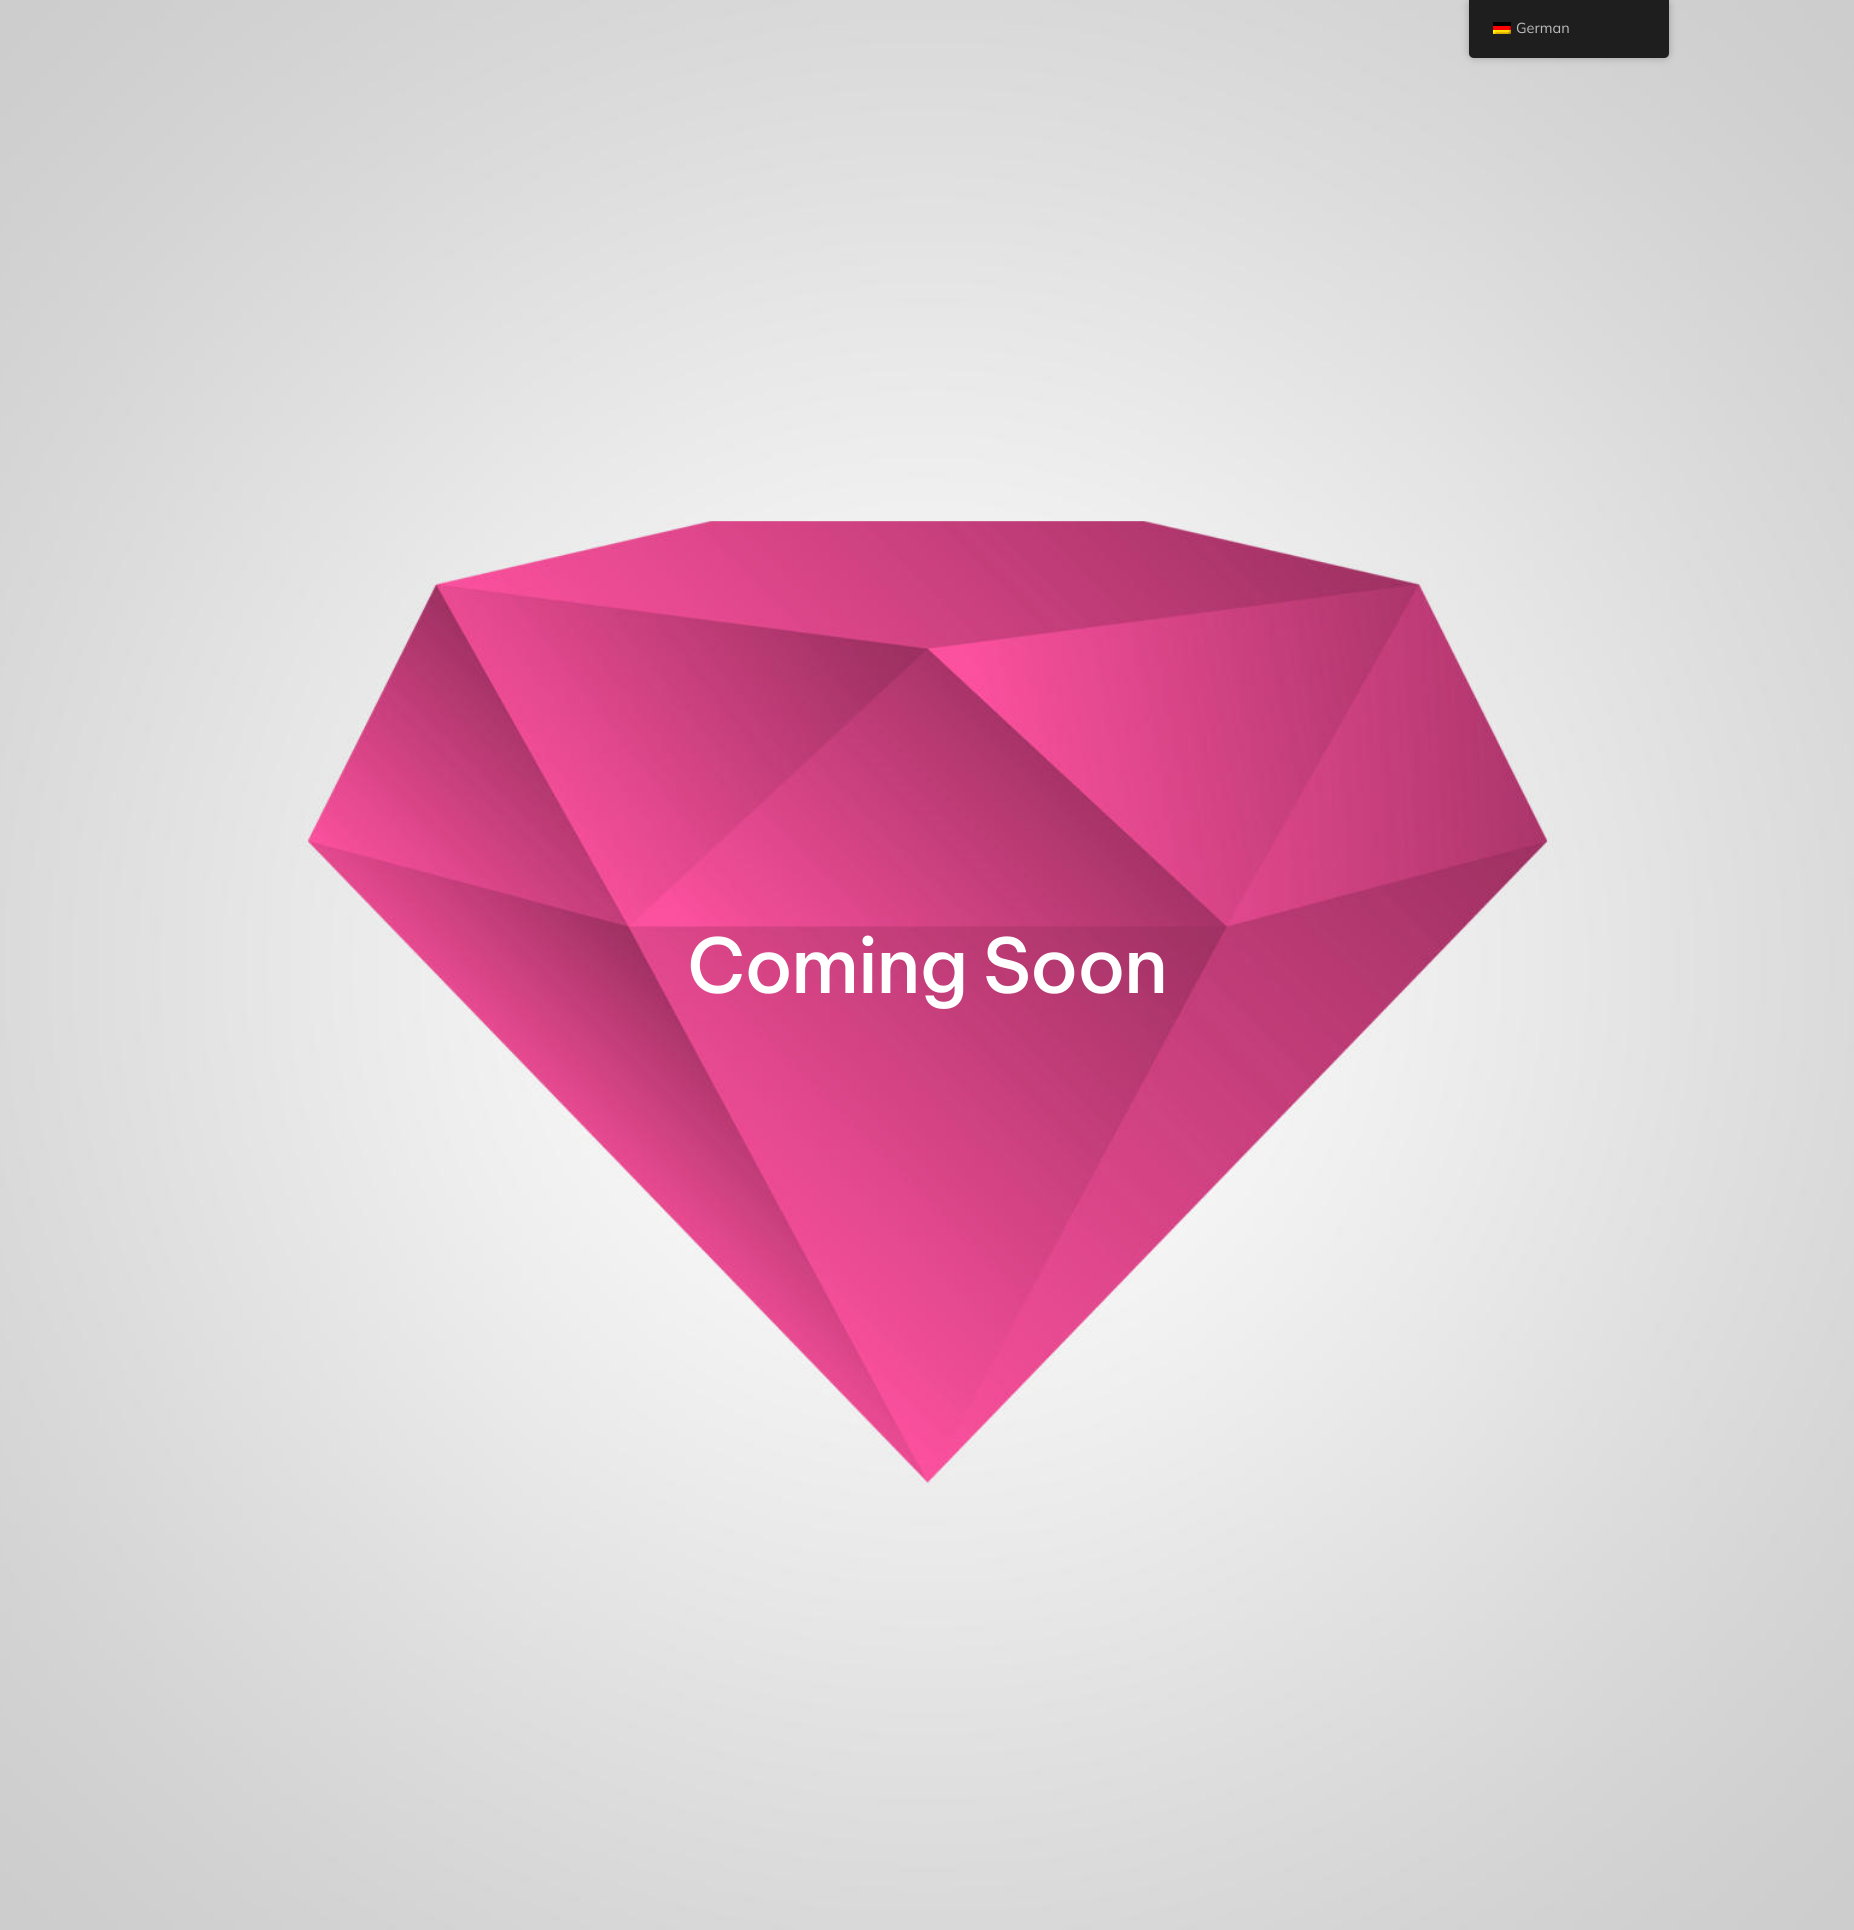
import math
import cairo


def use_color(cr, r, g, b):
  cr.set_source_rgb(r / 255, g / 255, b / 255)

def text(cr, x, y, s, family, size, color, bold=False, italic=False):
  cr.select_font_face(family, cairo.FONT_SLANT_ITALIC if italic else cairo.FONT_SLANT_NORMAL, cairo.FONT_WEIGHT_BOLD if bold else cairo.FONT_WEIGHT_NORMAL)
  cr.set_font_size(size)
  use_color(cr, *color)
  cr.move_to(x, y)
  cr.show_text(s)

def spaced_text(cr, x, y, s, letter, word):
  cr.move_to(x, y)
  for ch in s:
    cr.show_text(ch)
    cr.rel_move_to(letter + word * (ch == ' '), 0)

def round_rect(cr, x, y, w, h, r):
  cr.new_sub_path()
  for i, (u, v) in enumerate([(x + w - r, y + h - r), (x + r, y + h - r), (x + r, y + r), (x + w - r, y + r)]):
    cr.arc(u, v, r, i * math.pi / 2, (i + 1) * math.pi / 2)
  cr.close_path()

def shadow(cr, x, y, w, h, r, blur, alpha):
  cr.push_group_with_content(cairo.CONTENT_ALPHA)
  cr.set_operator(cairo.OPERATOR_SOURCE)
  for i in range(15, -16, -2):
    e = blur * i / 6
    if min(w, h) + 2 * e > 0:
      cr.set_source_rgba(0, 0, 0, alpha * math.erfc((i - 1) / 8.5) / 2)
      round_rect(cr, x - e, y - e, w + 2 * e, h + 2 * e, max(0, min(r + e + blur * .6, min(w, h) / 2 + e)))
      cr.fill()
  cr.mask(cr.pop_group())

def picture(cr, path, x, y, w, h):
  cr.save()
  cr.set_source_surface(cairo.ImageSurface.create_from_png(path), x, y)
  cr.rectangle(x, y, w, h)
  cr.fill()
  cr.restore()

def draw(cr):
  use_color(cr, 255, 255, 255)
  cr.paint()
  picture(cr, "img_02.png", 0, 0, 1854, 1930)
  use_color(cr, 0, 0, 0)
  shadow(cr, 1469, 0, 200, 58, 5, 4, 0.25)
  use_color(cr, 30, 30, 30)
  cr.new_path()
  cr.move_to(1469, 0)
  cr.line_to(1669, 0)
  cr.line_to(1669, 53)
  cr.curve_to(1669, 56, 1667, 58, 1664, 58)
  cr.line_to(1474, 58)
  cr.curve_to(1471, 58, 1469, 56, 1469, 53)
  cr.close_path()
  cr.fill()
  picture(cr, "img_01.png", 1493, 22, 18, 12)
  text(cr, 1516, 33, "German", "Mulish", 14.5, (189, 189, 189))
  cr.select_font_face("Be Vietnam Pro Medium")
  cr.set_font_size(75.5)
  use_color(cr, 255, 255, 255)
  spaced_text(cr, 687, 993, "Coming Soon", -1.5, 0)


surface = cairo.ImageSurface(cairo.FORMAT_RGB24, 1854, 1930)
cr = cairo.Context(surface)
options = cairo.FontOptions()
options.set_hint_metrics(cairo.HINT_METRICS_OFF)
options.set_hint_style(cairo.HINT_STYLE_NONE)
cr.set_font_options(options)
cr.set_miter_limit(4)
draw(cr)
surface.write_to_png("out.png")
